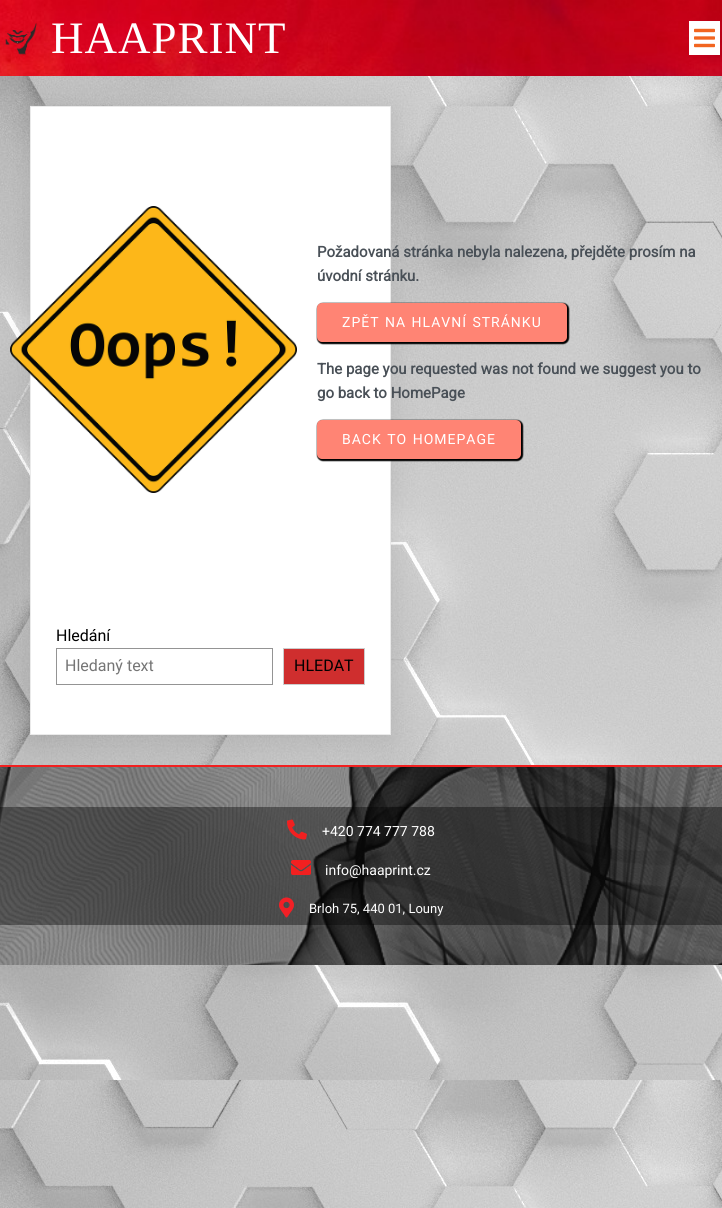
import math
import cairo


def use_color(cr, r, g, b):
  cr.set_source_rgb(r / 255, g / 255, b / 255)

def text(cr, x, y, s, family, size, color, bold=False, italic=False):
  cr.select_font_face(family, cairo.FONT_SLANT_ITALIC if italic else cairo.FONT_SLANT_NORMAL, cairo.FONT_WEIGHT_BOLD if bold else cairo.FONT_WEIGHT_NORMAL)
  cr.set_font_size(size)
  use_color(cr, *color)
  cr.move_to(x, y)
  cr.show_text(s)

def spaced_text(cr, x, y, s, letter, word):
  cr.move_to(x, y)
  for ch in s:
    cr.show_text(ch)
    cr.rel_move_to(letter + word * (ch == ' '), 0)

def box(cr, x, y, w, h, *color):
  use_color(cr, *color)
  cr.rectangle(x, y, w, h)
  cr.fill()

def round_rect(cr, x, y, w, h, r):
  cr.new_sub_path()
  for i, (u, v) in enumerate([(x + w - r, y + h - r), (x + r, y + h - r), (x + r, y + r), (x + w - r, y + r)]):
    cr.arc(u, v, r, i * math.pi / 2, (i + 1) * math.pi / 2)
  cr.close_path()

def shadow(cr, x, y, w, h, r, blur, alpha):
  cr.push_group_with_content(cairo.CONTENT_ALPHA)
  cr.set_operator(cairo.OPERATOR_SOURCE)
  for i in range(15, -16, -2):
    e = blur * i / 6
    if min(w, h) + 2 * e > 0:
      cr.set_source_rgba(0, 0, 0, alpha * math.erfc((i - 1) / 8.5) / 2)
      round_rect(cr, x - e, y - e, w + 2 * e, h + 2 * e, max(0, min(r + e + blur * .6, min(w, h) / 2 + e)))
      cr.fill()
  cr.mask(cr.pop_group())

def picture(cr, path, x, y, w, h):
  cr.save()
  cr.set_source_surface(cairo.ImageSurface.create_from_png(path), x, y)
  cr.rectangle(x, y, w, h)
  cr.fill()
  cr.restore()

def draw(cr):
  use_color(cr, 255, 255, 255)
  cr.paint()
  picture(cr, "img_01.png", 0, 76, 722, 1132)
  use_color(cr, 0, 0, 0)
  shadow(cr, 30, 111, 361, 629, 0, 15, 0.1)
  picture(cr, "img_02.png", 0, 0, 722, 76)
  picture(cr, "img_03.png", 5, 23, 32, 32)
  box(cr, 689, 21, 31, 34, 255, 255, 255)
  picture(cr, "img_04.png", 694, 28, 21, 20)
  cr.rectangle(30.5, 106.5, 360, 628)
  cr.fill_preserve()
  use_color(cr, 234, 234, 234)
  cr.set_line_width(1)
  cr.stroke()
  picture(cr, "img_05.png", 10, 206, 287, 287)
  use_color(cr, 0, 0, 0)
  shadow(cr, 317, 303, 252, 41, 6, 0.5, 1)
  use_color(cr, 255, 132, 116)
  round_rect(cr, 317, 303, 250, 39, 5)
  cr.fill()
  use_color(cr, 0, 0, 0)
  shadow(cr, 317, 420, 206, 41, 6, 0.5, 1)
  use_color(cr, 255, 132, 116)
  round_rect(cr, 317, 420, 204, 39, 5)
  cr.fill()
  cr.rectangle(56.5, 648.5, 216, 36)
  use_color(cr, 148, 148, 148)
  cr.stroke()
  use_color(cr, 207, 46, 46)
  cr.rectangle(283.5, 648.5, 81, 36)
  cr.fill_preserve()
  use_color(cr, 204, 204, 204)
  cr.stroke()
  box(cr, 0, 765, 722, 2, 242, 32, 32)
  picture(cr, "img_06.png", 0, 767, 722, 198)
  cr.set_source_rgba(0.016, 0.016, 0.016, 0.4)
  cr.rectangle(0, 807, 722, 39)
  cr.fill()
  picture(cr, "img_07.png", 287, 819, 20, 21)
  cr.rectangle(0, 846, 722, 39)
  cr.fill()
  picture(cr, "img_08.png", 291, 860, 20, 15)
  cr.rectangle(0, 885, 722, 40)
  cr.fill()
  picture(cr, "img_09.png", 279, 897, 15, 21)
  cr.select_font_face("Liberation Serif")
  cr.set_font_size(45)
  use_color(cr, 255, 255, 255)
  spaced_text(cr, 51, 53, "HAAPRINT", 1, 0)
  text(cr, 317, 257, "Požadovaná stránka nebyla nalezena, přejděte prosím na", "Roboto", 15, (73, 80, 87), bold=True)
  text(cr, 317, 281, "úvodní stránku.", "Roboto", 15, (73, 80, 87), bold=True)
  cr.select_font_face("Roboto")
  cr.set_font_size(14)
  use_color(cr, 255, 255, 255)
  spaced_text(cr, 342, 327, "ZPĚT NA HLAVNÍ STRÁNKU", 1, 1)
  text(cr, 317, 374, "The page you requested was not found we suggest you to", "Roboto", 15, (73, 80, 87), bold=True)
  text(cr, 317, 398, "go back to HomePage", "Roboto", 15, (73, 80, 87), bold=True)
  cr.select_font_face("Roboto")
  cr.set_font_size(14)
  use_color(cr, 255, 255, 255)
  spaced_text(cr, 342, 444, "BACK TO HOMEPAGE", 1, 1)
  text(cr, 56, 641, "Hledání", "Roboto", 16, (0, 0, 0))
  text(cr, 65, 671, "Hledaný text", "Roboto", 16, (117, 117, 117))
  text(cr, 294, 671, "HLEDAT", "Roboto", 16, (0, 0, 0))
  text(cr, 322, 836, "+420 774 777 788", "Roboto", 14, (255, 255, 255))
  text(cr, 325, 875, "info@haaprint.cz", "Roboto", 14, (255, 255, 255))
  text(cr, 309, 913, "Brloh 75, 440 01, Louny", "Roboto", 13, (255, 255, 255))


surface = cairo.ImageSurface(cairo.FORMAT_RGB24, 722, 1208)
cr = cairo.Context(surface)
options = cairo.FontOptions()
options.set_hint_metrics(cairo.HINT_METRICS_OFF)
options.set_hint_style(cairo.HINT_STYLE_NONE)
cr.set_font_options(options)
cr.set_miter_limit(4)
draw(cr)
surface.write_to_png("out.png")
